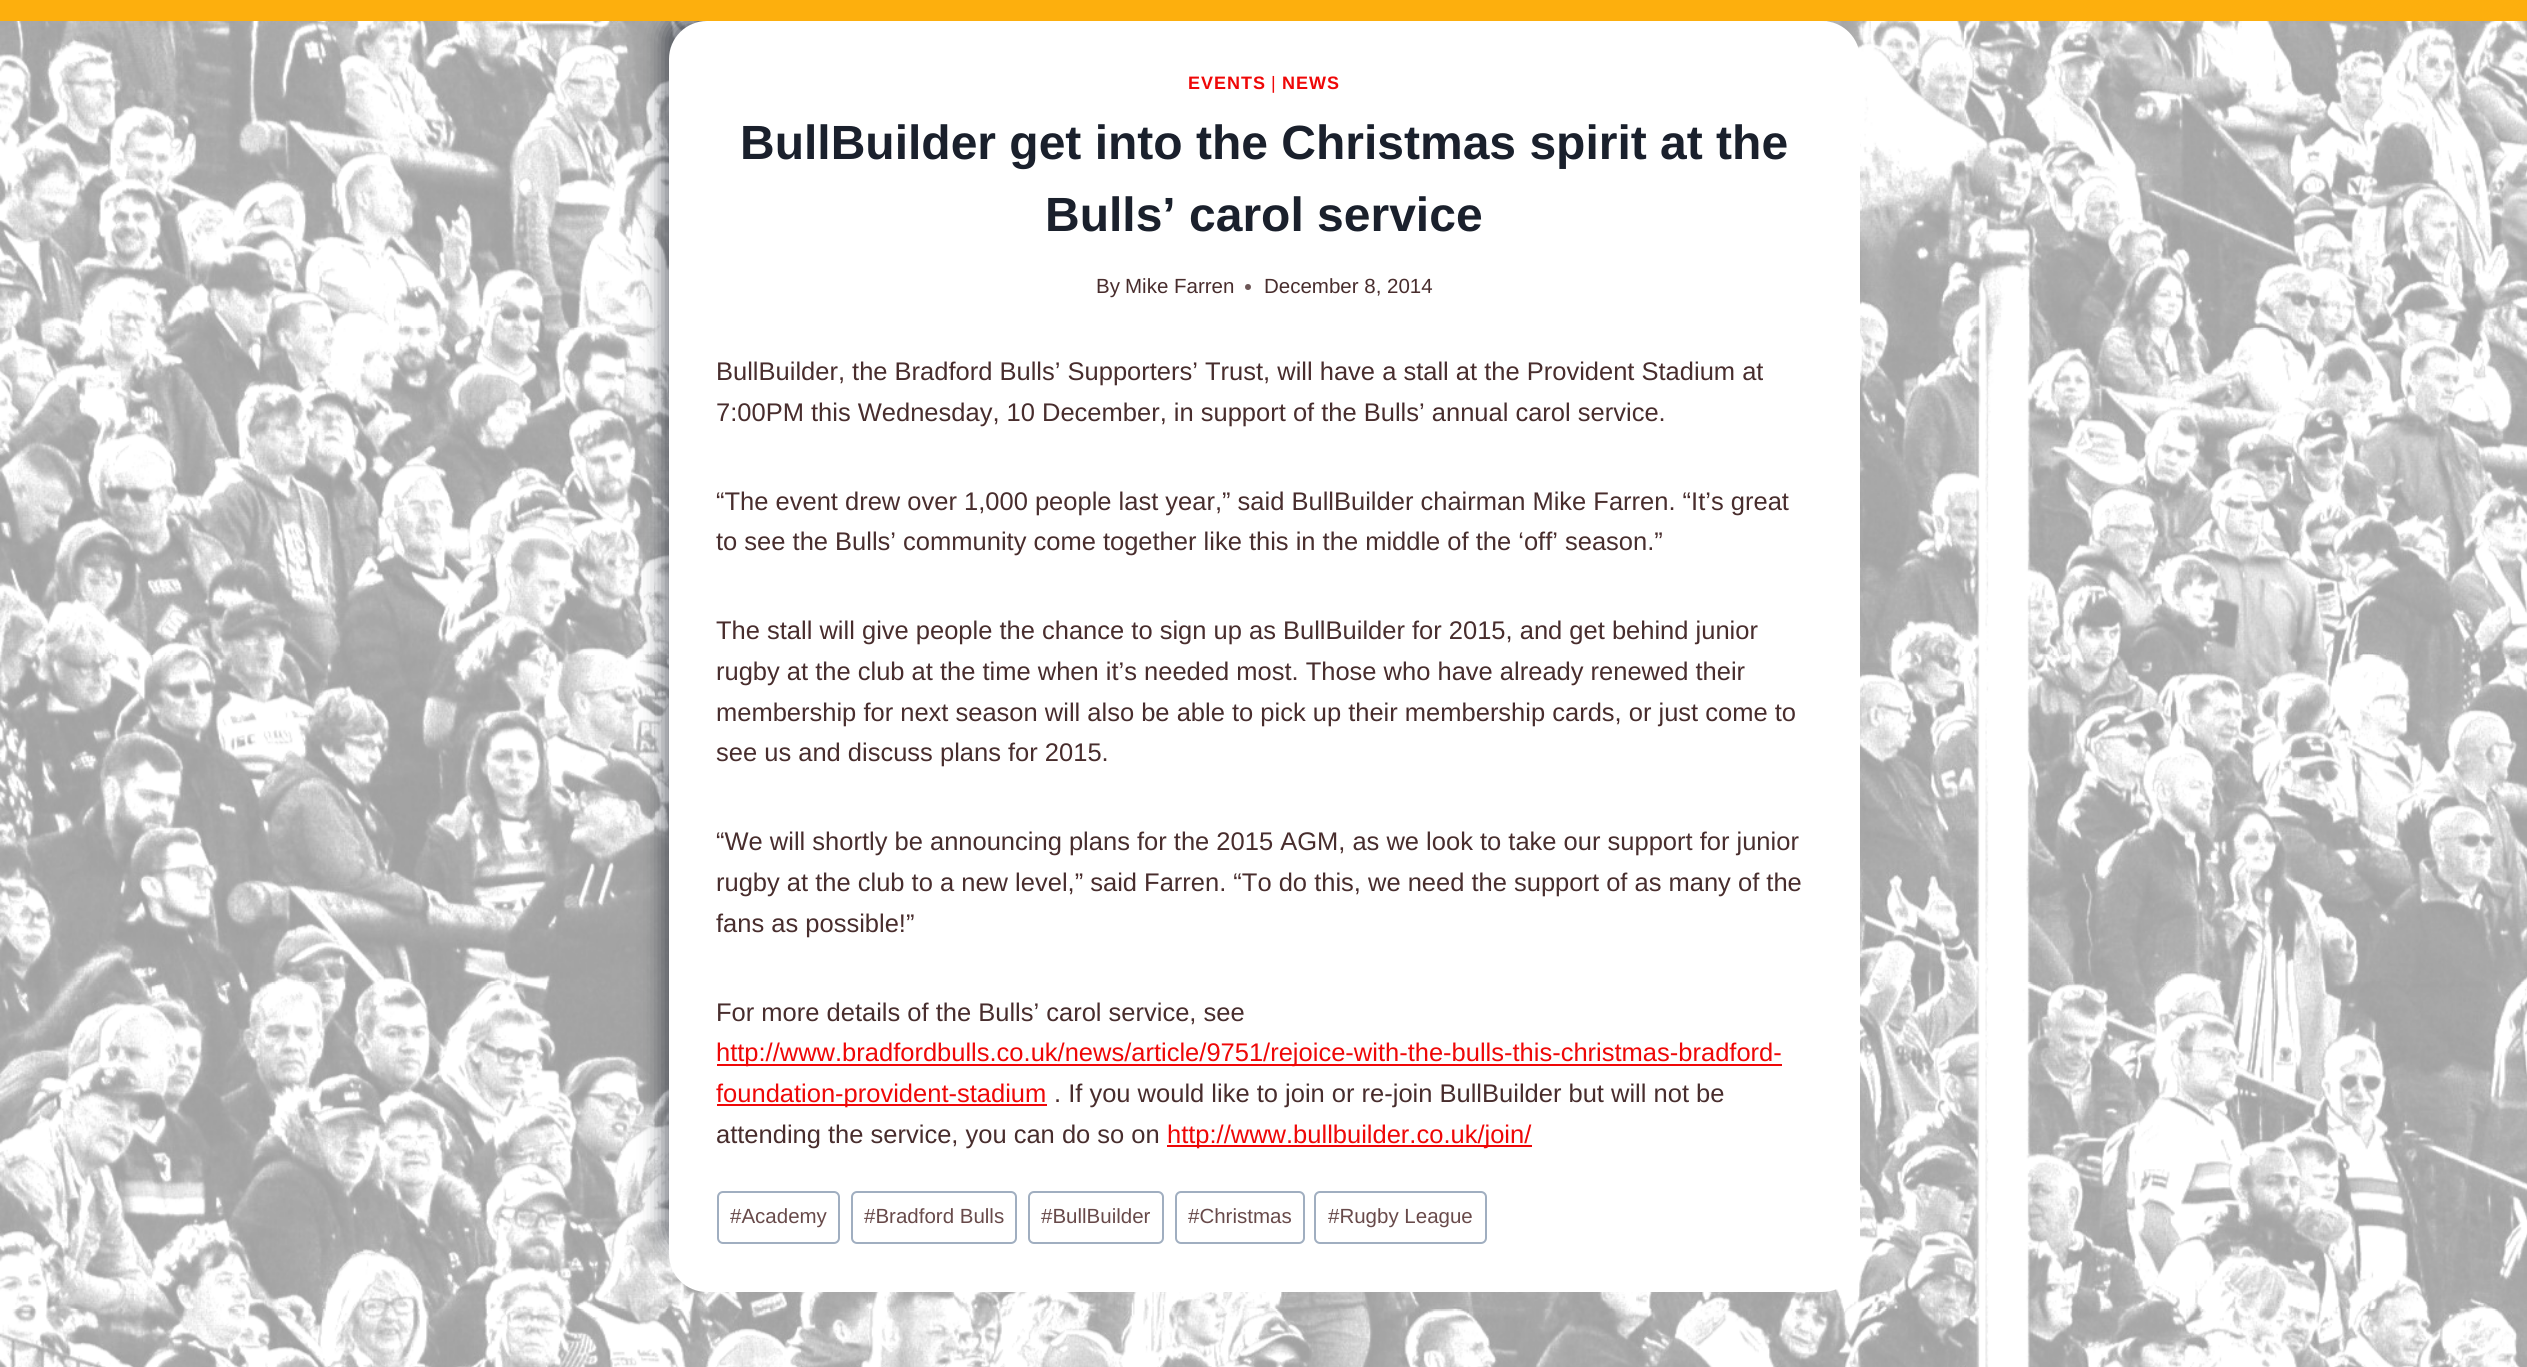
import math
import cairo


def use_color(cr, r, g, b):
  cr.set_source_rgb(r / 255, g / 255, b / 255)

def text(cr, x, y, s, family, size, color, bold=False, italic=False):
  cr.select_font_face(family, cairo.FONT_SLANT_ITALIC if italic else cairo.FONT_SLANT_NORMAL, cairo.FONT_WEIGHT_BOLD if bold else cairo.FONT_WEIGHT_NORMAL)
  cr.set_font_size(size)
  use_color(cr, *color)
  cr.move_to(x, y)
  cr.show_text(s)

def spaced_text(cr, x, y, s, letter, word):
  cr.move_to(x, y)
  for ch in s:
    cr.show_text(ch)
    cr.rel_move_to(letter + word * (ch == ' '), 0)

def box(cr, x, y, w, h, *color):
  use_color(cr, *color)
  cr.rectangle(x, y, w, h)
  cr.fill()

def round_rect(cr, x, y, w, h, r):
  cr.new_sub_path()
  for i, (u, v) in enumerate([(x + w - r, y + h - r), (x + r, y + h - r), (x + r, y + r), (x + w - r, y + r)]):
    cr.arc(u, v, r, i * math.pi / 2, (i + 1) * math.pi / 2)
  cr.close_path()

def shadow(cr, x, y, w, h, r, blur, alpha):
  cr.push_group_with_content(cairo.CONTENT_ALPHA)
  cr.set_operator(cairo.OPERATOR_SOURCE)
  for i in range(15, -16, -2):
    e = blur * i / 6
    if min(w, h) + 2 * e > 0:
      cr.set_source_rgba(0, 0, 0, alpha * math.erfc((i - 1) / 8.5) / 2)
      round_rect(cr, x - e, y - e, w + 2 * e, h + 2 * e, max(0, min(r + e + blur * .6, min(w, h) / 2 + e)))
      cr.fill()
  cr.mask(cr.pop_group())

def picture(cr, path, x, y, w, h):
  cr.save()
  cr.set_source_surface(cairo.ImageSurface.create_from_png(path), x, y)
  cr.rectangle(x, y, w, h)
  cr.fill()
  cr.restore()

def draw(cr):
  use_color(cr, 255, 255, 255)
  cr.paint()
  picture(cr, "img_01.png", 0, 21, 2527, 1346)
  use_color(cr, 26, 32, 44)
  shadow(cr, 663, 14, 1161, 1240, 23, 11, 0.61)
  box(cr, 0, 0, 2527, 21, 253, 175, 13)
  use_color(cr, 255, 255, 255)
  round_rect(cr, 669, 21, 1191, 1271, 38)
  cr.fill()
  use_color(cr, 109, 87, 87)
  cr.arc(1248, 287, 3, 0, 2 * math.pi)
  cr.fill()
  box(cr, 717, 1064, 1065, 2, 239, 7, 7)
  box(cr, 717, 1104, 330, 2, 239, 7, 7)
  box(cr, 1167, 1145, 365, 2, 239, 7, 7)
  round_rect(cr, 718, 1192, 121, 51, 5)
  use_color(cr, 160, 174, 192)
  cr.stroke()
  round_rect(cr, 852, 1192, 164, 51, 5)
  cr.stroke()
  round_rect(cr, 1029, 1192, 134, 51, 5)
  cr.stroke()
  round_rect(cr, 1176, 1192, 128, 51, 5)
  cr.stroke()
  round_rect(cr, 1315, 1192, 171, 51, 5)
  cr.stroke()
  cr.select_font_face("Liberation Sans", cairo.FONT_SLANT_NORMAL, cairo.FONT_WEIGHT_BOLD)
  cr.set_font_size(18)
  use_color(cr, 239, 7, 7)
  spaced_text(cr, 1188, 89, "EVENTS", 1, 0)
  cr.select_font_face("Liberation Sans")
  spaced_text(cr, 1271, 89, "|", 1, 0)
  cr.select_font_face("Liberation Sans", cairo.FONT_SLANT_NORMAL, cairo.FONT_WEIGHT_BOLD)
  spaced_text(cr, 1282, 89, "NEWS", 1, 0)
  text(cr, 740, 159, "BullBuilder get into the Christmas spirit at the", "Liberation Sans", 48, (26, 32, 44), bold=True)
  text(cr, 1045, 231, "Bulls’ carol service", "Liberation Sans", 48, (26, 32, 44), bold=True)
  text(cr, 1096, 293, "By", "Liberation Sans", 20.5, (72, 45, 45))
  text(cr, 1125, 293, "Mike Farren", "Liberation Sans", 20.5, (72, 45, 45))
  text(cr, 1264, 293, "December 8, 2014", "Liberation Sans", 20.5, (72, 45, 45))
  text(cr, 716, 380, "BullBuilder, the Bradford Bulls’ Supporters’ Trust, will have a stall at the Provident Stadium at", "Liberation Sans", 25.5, (72, 45, 45))
  text(cr, 716, 421, "7:00PM this Wednesday, 10 December, in support of the Bulls’ annual carol service.", "Liberation Sans", 25.5, (72, 45, 45))
  text(cr, 716, 510, "“The event drew over 1,000 people last year,” said BullBuilder chairman Mike Farren. “It’s great", "Liberation Sans", 25.5, (72, 45, 45))
  text(cr, 716, 550, "to see the Bulls’ community come together like this in the middle of the ‘off’ season.”", "Liberation Sans", 25.5, (72, 45, 45))
  text(cr, 716, 639, "The stall will give people the chance to sign up as BullBuilder for 2015, and get behind junior", "Liberation Sans", 25.5, (72, 45, 45))
  text(cr, 716, 680, "rugby at the club at the time when it’s needed most. Those who have already renewed their", "Liberation Sans", 25.5, (72, 45, 45))
  text(cr, 716, 721, "membership for next season will also be able to pick up their membership cards, or just come to", "Liberation Sans", 25.5, (72, 45, 45))
  text(cr, 716, 761, "see us and discuss plans for 2015.", "Liberation Sans", 25.5, (72, 45, 45))
  text(cr, 716, 850, "“We will shortly be announcing plans for the 2015 AGM, as we look to take our support for junior", "Liberation Sans", 25.5, (72, 45, 45))
  text(cr, 716, 891, "rugby at the club to a new level,” said Farren. “To do this, we need the support of as many of the", "Liberation Sans", 25.5, (72, 45, 45))
  text(cr, 716, 932, "fans as possible!”", "Liberation Sans", 25.5, (72, 45, 45))
  text(cr, 716, 1021, "For more details of the Bulls’ carol service, see", "Liberation Sans", 25.5, (72, 45, 45))
  text(cr, 716, 1061, "http://www.bradfordbulls.co.uk/news/article/9751/rejoice-with-the-bulls-this-christmas-bradford-", "Liberation Sans", 25.5, (239, 7, 7))
  text(cr, 716, 1102, "foundation-provident-stadium", "Liberation Sans", 25.5, (239, 7, 7))
  text(cr, 1054, 1102, ". If you would like to join or re-join BullBuilder but will not be", "Liberation Sans", 25.5, (72, 45, 45))
  text(cr, 716, 1143, "attending the service, you can do so on", "Liberation Sans", 25.5, (72, 45, 45))
  text(cr, 1167, 1143, "http://www.bullbuilder.co.uk/join/", "Liberation Sans", 25.5, (239, 7, 7))
  text(cr, 730, 1223, "#Academy", "Liberation Sans", 20.5, (104, 74, 74))
  text(cr, 864, 1223, "#Bradford Bulls", "Liberation Sans", 20.5, (104, 74, 74))
  text(cr, 1041, 1223, "#BullBuilder", "Liberation Sans", 20.5, (104, 74, 74))
  text(cr, 1188, 1223, "#Christmas", "Liberation Sans", 20.5, (104, 74, 74))
  text(cr, 1328, 1223, "#Rugby League", "Liberation Sans", 20.5, (104, 74, 74))


surface = cairo.ImageSurface(cairo.FORMAT_RGB24, 2527, 1367)
cr = cairo.Context(surface)
options = cairo.FontOptions()
options.set_hint_metrics(cairo.HINT_METRICS_OFF)
options.set_hint_style(cairo.HINT_STYLE_NONE)
cr.set_font_options(options)
cr.set_miter_limit(4)
draw(cr)
surface.write_to_png("out.png")
